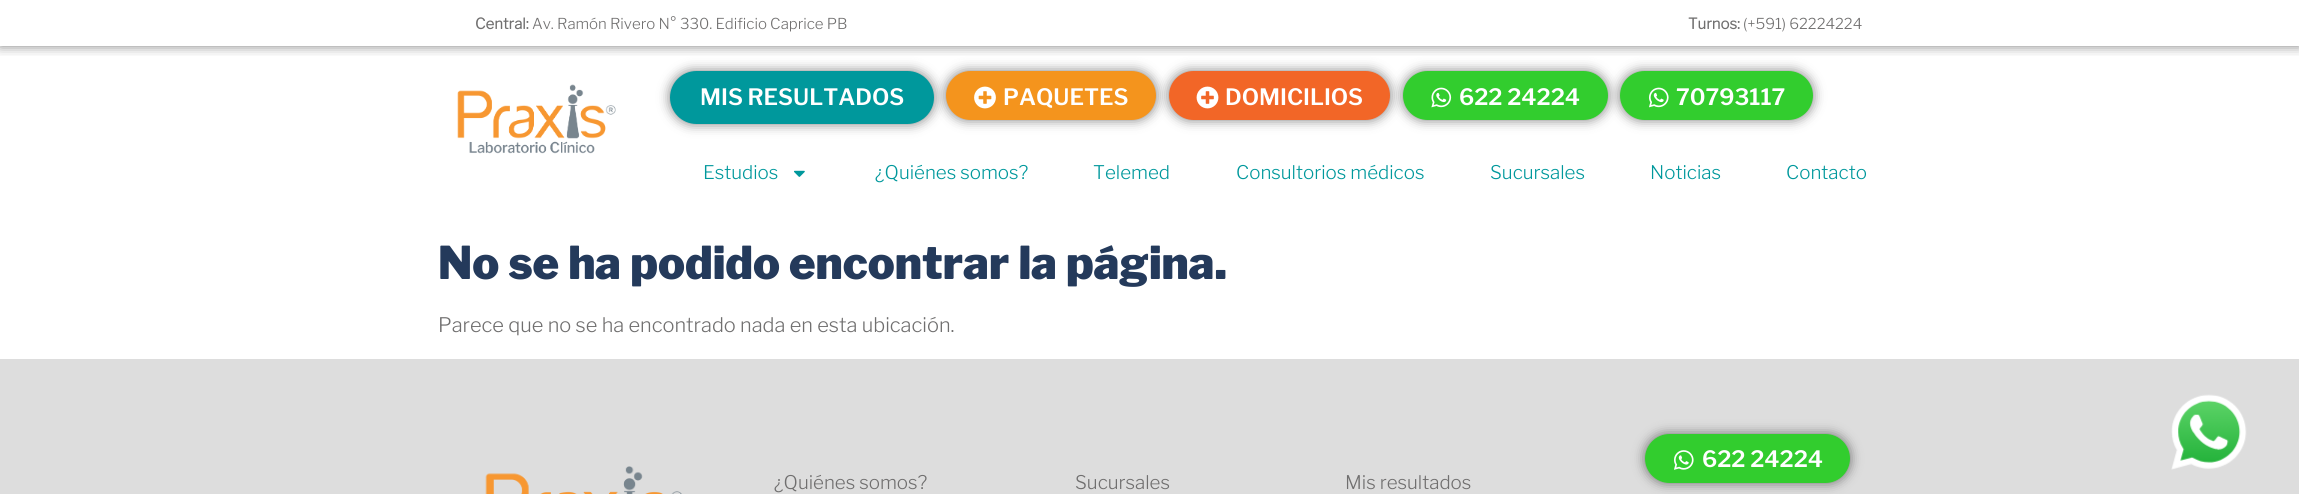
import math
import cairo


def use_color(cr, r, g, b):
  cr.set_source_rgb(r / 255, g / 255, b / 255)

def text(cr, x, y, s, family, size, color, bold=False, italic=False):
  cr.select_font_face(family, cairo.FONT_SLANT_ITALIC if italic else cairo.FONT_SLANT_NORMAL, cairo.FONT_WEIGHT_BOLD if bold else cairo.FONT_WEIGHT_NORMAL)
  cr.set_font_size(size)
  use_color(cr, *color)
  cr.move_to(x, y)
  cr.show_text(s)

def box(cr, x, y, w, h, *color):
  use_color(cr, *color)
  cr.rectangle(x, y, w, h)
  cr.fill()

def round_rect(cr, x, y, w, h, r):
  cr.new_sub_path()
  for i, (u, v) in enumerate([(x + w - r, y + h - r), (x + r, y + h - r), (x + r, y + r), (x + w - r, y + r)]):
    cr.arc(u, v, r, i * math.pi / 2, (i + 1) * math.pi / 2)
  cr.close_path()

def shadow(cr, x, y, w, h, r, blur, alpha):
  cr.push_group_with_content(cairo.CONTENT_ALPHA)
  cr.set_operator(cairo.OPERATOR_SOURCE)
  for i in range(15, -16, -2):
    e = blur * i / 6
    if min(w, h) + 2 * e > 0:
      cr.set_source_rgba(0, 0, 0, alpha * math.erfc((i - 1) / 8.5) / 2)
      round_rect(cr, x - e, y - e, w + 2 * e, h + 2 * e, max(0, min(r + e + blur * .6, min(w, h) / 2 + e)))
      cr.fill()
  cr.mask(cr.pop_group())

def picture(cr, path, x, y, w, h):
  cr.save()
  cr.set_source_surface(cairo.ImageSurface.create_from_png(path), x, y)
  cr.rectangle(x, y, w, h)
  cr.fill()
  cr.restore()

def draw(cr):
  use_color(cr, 255, 255, 255)
  cr.paint()
  cr.save()
  cr.rectangle(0, 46, 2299, 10)
  cr.clip()
  use_color(cr, 0, 0, 0)
  shadow(cr, 0, 0, 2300, 46, 0, 6, 0.5)
  cr.restore()
  picture(cr, "img_01.png", 457, 84, 159, 70)
  use_color(cr, 0, 0, 0)
  shadow(cr, 670, 71, 264, 53, 26.5, 6, 0.5)
  use_color(cr, 0, 152, 156)
  round_rect(cr, 670, 71, 264, 53, 26.5)
  cr.fill()
  use_color(cr, 0, 0, 0)
  shadow(cr, 946, 71, 210, 49, 24.5, 6, 0.5)
  use_color(cr, 244, 148, 29)
  round_rect(cr, 946, 71, 210, 49, 24.5)
  cr.fill()
  picture(cr, "img_02.png", 974, 86, 22, 23)
  use_color(cr, 0, 0, 0)
  shadow(cr, 1169, 71, 221, 49, 24.5, 6, 0.5)
  use_color(cr, 242, 102, 39)
  round_rect(cr, 1169, 71, 221, 49, 24.5)
  cr.fill()
  picture(cr, "img_03.png", 1196, 86, 23, 23)
  use_color(cr, 0, 0, 0)
  shadow(cr, 1403, 71, 205, 49, 24.5, 6, 0.5)
  use_color(cr, 50, 205, 46)
  round_rect(cr, 1403, 71, 205, 49, 24.5)
  cr.fill()
  picture(cr, "img_04.png", 1431, 87, 21, 21)
  use_color(cr, 0, 0, 0)
  shadow(cr, 1620, 71, 193, 49, 24.5, 6, 0.5)
  use_color(cr, 50, 205, 46)
  round_rect(cr, 1620, 71, 193, 49, 24.5)
  cr.fill()
  picture(cr, "img_05.png", 1649, 87, 20, 21)
  picture(cr, "img_06.png", 794, 170, 11, 7)
  box(cr, 0, 359, 2299, 135, 221, 221, 221)
  use_color(cr, 0, 0, 0)
  shadow(cr, 1645, 434, 205, 49, 24.5, 6, 0.5)
  use_color(cr, 50, 205, 46)
  round_rect(cr, 1645, 434, 205, 49, 24.5)
  cr.fill()
  picture(cr, "img_07.png", 1674, 450, 20, 20)
  picture(cr, "img_08.png", 485, 466, 197, 28)
  picture(cr, "img_09.png", 2171, 394, 76, 76)
  text(cr, 475, 29, "Central:", "Libre Franklin", 15, (112, 111, 111), bold=True)
  text(cr, 532, 29, "Av. Ramón Rivero N° 330. Edificio Caprice PB", "Libre Franklin Light", 15, (112, 111, 111))
  text(cr, 1688, 29, "Turnos:", "Libre Franklin", 15, (112, 111, 111), bold=True)
  text(cr, 1743, 29, "(+591) 62224224", "Libre Franklin Light", 15, (112, 111, 111))
  text(cr, 700, 105, "MIS RESULTADOS", "Libre Franklin SemiBold", 22.5, (255, 255, 255))
  text(cr, 1003, 105, "PAQUETES", "Libre Franklin SemiBold", 22.5, (255, 255, 255))
  text(cr, 1225, 105, "DOMICILIOS", "Libre Franklin SemiBold", 22.5, (255, 255, 255))
  text(cr, 1459, 105, "622 24224", "Libre Franklin SemiBold", 22.5, (255, 255, 255))
  text(cr, 1676, 105, "70793117", "Libre Franklin SemiBold", 22.5, (255, 255, 255))
  text(cr, 703, 179, "Estudios", "Libre Franklin Light", 18.75, (0, 152, 156))
  text(cr, 875, 179, "¿Quiénes somos?", "Libre Franklin Light", 18.75, (0, 152, 156))
  text(cr, 1093, 179, "Telemed", "Libre Franklin Light", 18.75, (0, 152, 156))
  text(cr, 1236, 179, "Consultorios médicos", "Libre Franklin Light", 18.75, (0, 152, 156))
  text(cr, 1490, 179, "Sucursales", "Libre Franklin Light", 18.75, (0, 152, 156))
  text(cr, 1650, 179, "Noticias", "Libre Franklin Light", 18.75, (0, 152, 156))
  text(cr, 1786, 179, "Contacto", "Libre Franklin Light", 18.75, (0, 152, 156))
  text(cr, 438, 279, "No se ha podido encontrar la página.", "Libre Franklin Black", 45, (36, 58, 91))
  text(cr, 438, 332, "Parece que no se ha encontrado nada en esta ubicación.", "Libre Franklin Light", 20, (112, 111, 111))
  text(cr, 1702, 467, "622 24224", "Libre Franklin SemiBold", 22.5, (255, 255, 255))
  text(cr, 774, 489, "¿Quiénes somos?", "Libre Franklin Light", 18.75, (112, 111, 111))
  text(cr, 1075, 489, "Sucursales", "Libre Franklin Light", 18.75, (112, 111, 111))
  text(cr, 1345, 489, "Mis resultados", "Libre Franklin Light", 18.75, (112, 111, 111))


surface = cairo.ImageSurface(cairo.FORMAT_RGB24, 2299, 494)
cr = cairo.Context(surface)
options = cairo.FontOptions()
options.set_hint_metrics(cairo.HINT_METRICS_OFF)
options.set_hint_style(cairo.HINT_STYLE_NONE)
cr.set_font_options(options)
cr.set_miter_limit(4)
draw(cr)
surface.write_to_png("out.png")
